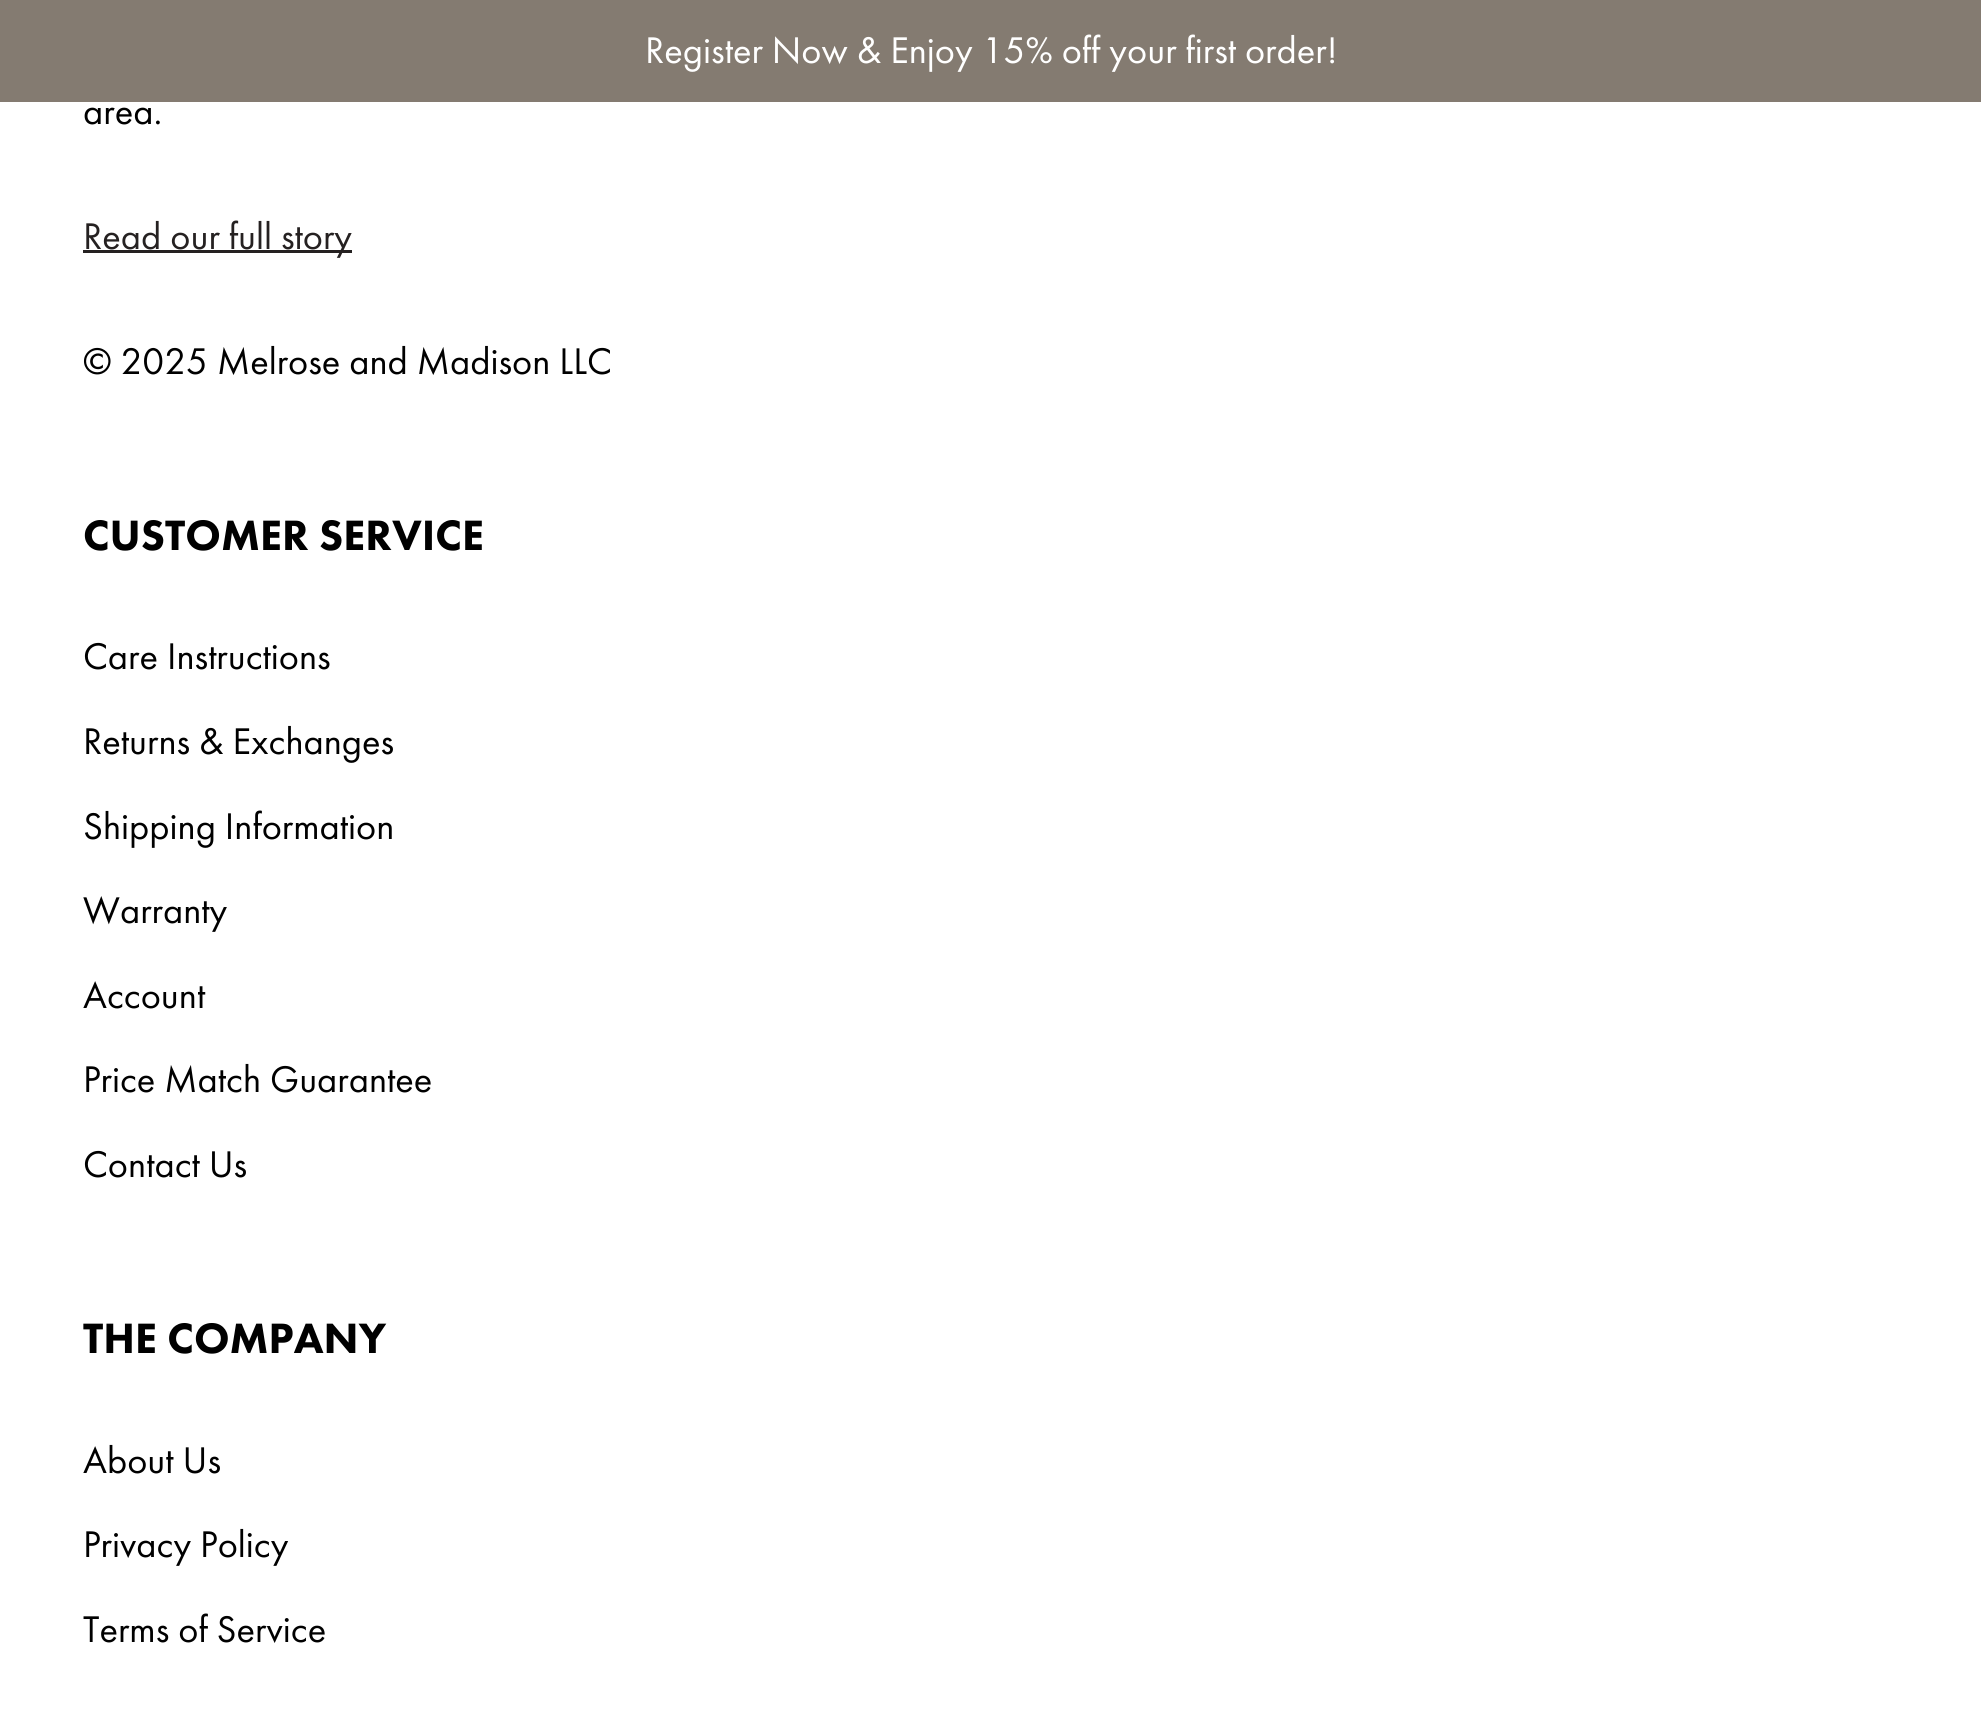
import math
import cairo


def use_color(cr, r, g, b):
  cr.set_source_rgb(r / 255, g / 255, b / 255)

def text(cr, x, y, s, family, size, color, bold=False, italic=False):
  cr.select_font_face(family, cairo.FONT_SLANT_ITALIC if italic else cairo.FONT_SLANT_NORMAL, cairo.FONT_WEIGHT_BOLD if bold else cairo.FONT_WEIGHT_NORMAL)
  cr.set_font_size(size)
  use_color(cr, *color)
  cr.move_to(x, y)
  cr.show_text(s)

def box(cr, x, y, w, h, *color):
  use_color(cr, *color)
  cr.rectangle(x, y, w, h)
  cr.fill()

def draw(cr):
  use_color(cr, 255, 255, 255)
  cr.paint()
  box(cr, 0, 0, 1981, 102, 132, 123, 113)
  box(cr, 83, 250, 269, 3, 37, 33, 33)
  text(cr, 645, 63, "Register Now & Enjoy 15% off your first order!", "Futura PT", 38.5, (255, 255, 255))
  text(cr, 83, 124, "area.", "Futura PT", 38.5, (0, 0, 0))
  text(cr, 83, 249, "Read our full story", "Futura PT", 38.5, (37, 33, 33))
  text(cr, 83, 374, "© 2025 Melrose and Madison LLC", "Futura PT", 38.5, (0, 0, 0))
  text(cr, 83, 550, "CUSTOMER SERVICE", "Futura PT Black", 44, (0, 0, 0))
  text(cr, 83, 669, "Care Instructions", "Futura PT", 38.5, (0, 0, 0))
  text(cr, 83, 754, "Returns & Exchanges", "Futura PT", 38.5, (0, 0, 0))
  text(cr, 83, 839, "Shipping Information", "Futura PT", 38.5, (0, 0, 0))
  text(cr, 83, 923, "Warranty", "Futura PT", 38.5, (0, 0, 0))
  text(cr, 83, 1008, "Account", "Futura PT", 38.5, (0, 0, 0))
  text(cr, 83, 1092, "Price Match Guarantee", "Futura PT", 38.5, (0, 0, 0))
  text(cr, 83, 1177, "Contact Us", "Futura PT", 38.5, (0, 0, 0))
  text(cr, 83, 1353, "THE COMPANY", "Futura PT Black", 44, (0, 0, 0))
  text(cr, 83, 1473, "About Us", "Futura PT", 38.5, (0, 0, 0))
  text(cr, 83, 1557, "Privacy Policy", "Futura PT", 38.5, (0, 0, 0))
  text(cr, 83, 1642, "Terms of Service", "Futura PT", 38.5, (0, 0, 0))


surface = cairo.ImageSurface(cairo.FORMAT_RGB24, 1981, 1715)
cr = cairo.Context(surface)
options = cairo.FontOptions()
options.set_hint_metrics(cairo.HINT_METRICS_OFF)
options.set_hint_style(cairo.HINT_STYLE_NONE)
cr.set_font_options(options)
cr.set_miter_limit(4)
draw(cr)
surface.write_to_png("out.png")
